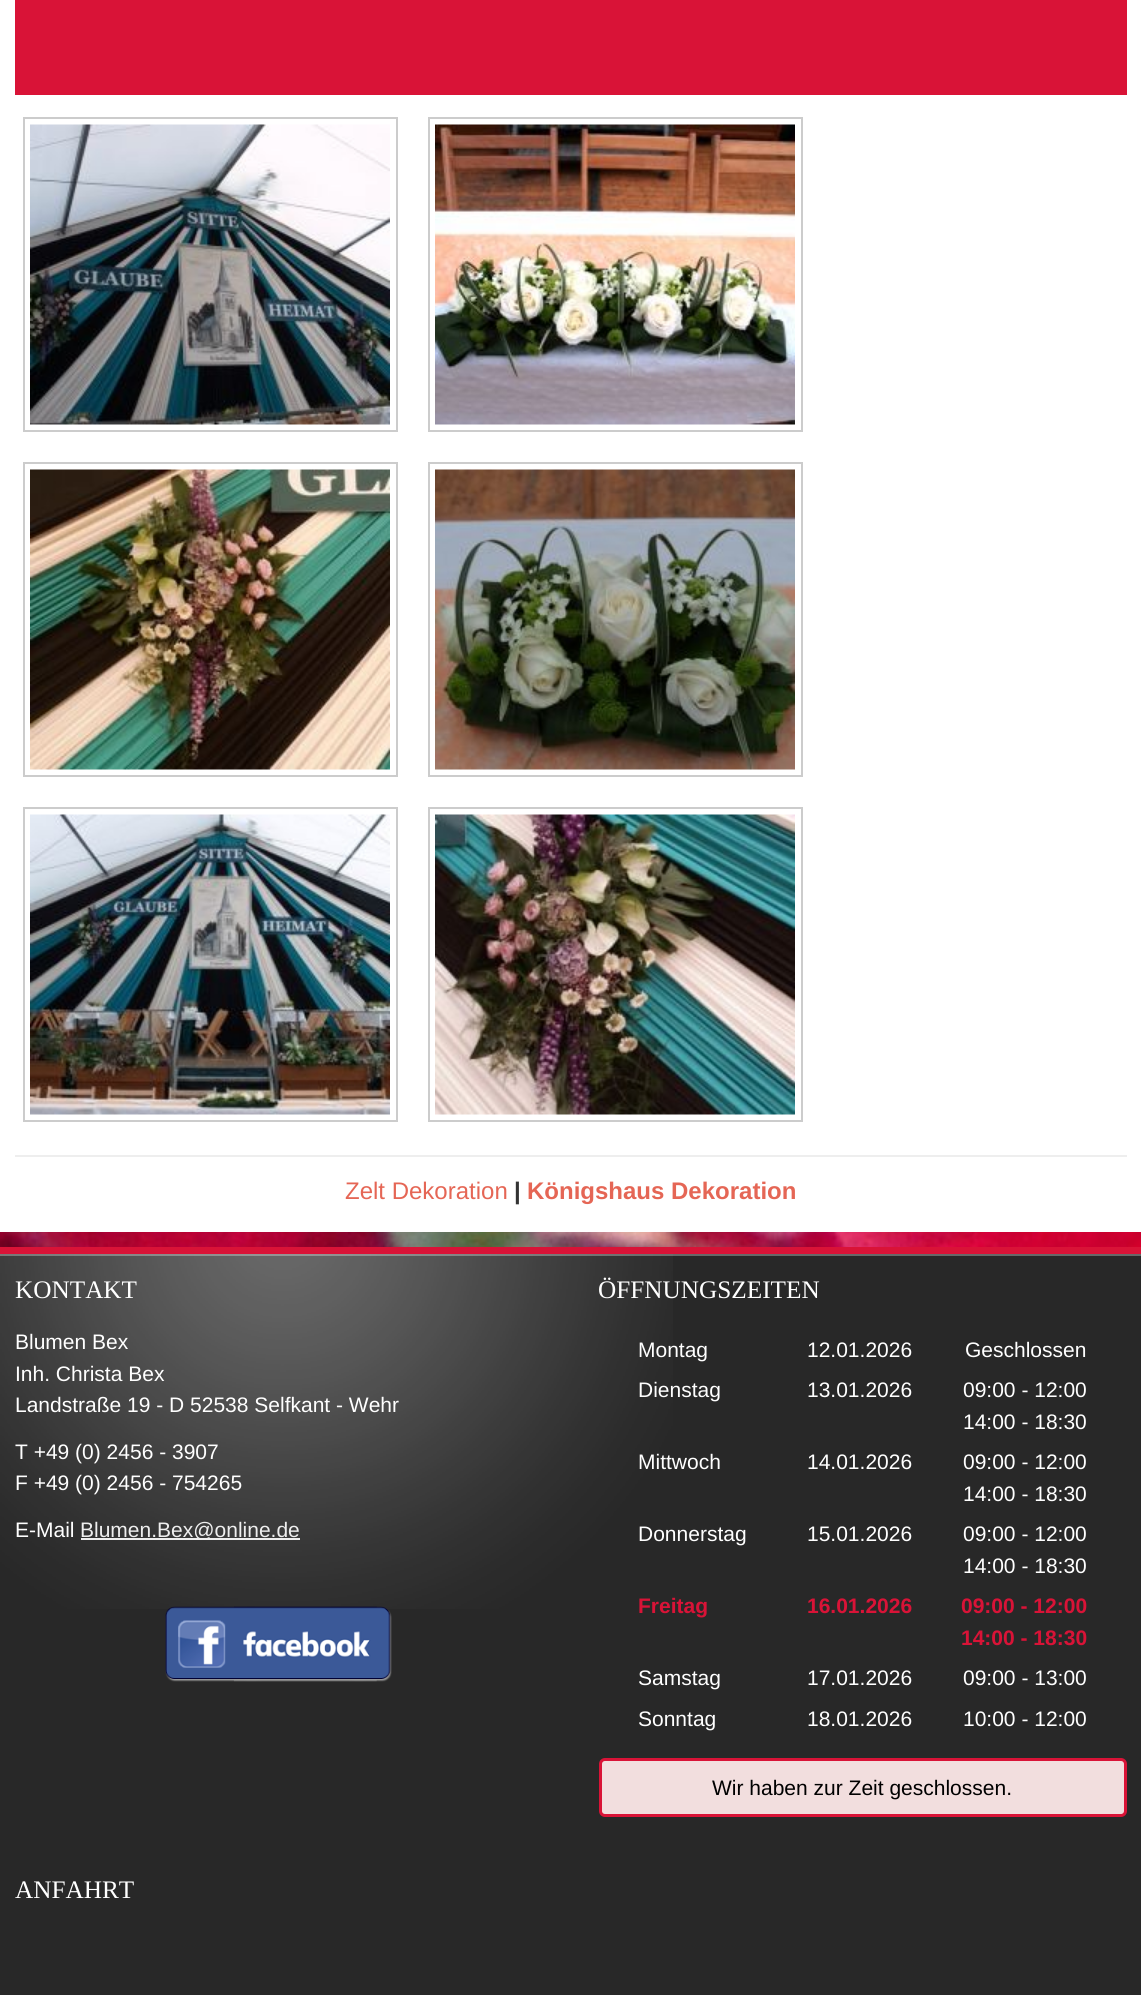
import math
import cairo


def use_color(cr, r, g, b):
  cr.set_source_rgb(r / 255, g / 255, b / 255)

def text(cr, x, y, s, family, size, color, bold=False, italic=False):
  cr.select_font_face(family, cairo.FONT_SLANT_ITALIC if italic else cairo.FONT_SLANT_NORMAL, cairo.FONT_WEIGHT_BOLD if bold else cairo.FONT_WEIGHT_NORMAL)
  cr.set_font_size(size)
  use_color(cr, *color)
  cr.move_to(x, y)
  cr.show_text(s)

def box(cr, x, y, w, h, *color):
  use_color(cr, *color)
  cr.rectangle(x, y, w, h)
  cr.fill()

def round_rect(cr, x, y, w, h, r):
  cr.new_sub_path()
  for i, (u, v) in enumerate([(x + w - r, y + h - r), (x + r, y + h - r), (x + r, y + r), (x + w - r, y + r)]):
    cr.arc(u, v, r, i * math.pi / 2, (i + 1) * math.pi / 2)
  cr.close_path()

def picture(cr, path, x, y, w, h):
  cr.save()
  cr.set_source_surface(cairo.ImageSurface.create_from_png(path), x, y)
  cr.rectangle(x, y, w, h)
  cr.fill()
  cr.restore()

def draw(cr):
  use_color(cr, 255, 255, 255)
  cr.paint()
  picture(cr, "img_01.png", 0, 1232, 1141, 15)
  box(cr, 15, 0, 1112, 95, 217, 19, 55)
  cr.rectangle(24, 118, 373, 313)
  use_color(cr, 204, 204, 204)
  cr.stroke()
  picture(cr, "img_02.png", 30, 124, 360, 301)
  cr.rectangle(429, 118, 373, 313)
  cr.stroke()
  picture(cr, "img_03.png", 435, 124, 360, 301)
  cr.rectangle(24, 463, 373, 313)
  cr.stroke()
  picture(cr, "img_04.png", 30, 469, 360, 301)
  cr.rectangle(429, 463, 373, 313)
  cr.stroke()
  picture(cr, "img_05.png", 435, 469, 360, 301)
  cr.rectangle(24, 808, 373, 313)
  cr.stroke()
  picture(cr, "img_06.png", 30, 814, 360, 301)
  cr.rectangle(429, 808, 373, 313)
  cr.stroke()
  picture(cr, "img_07.png", 435, 814, 360, 301)
  box(cr, 15, 1155, 1112, 2, 238, 238, 238)
  box(cr, 0, 1254, 1141, 741, 40, 40, 40)
  picture(cr, "img_08.png", 0, 1254, 673, 355)
  cr.set_source_rgba(1, 1, 1, 0.3)
  cr.rectangle(0, 1254, 1141, 2)
  cr.fill()
  box(cr, 0, 1247, 1141, 7, 217, 19, 55)
  box(cr, 81, 1538, 219, 2, 238, 238, 238)
  picture(cr, "img_09.png", 165, 1606, 227, 76)
  use_color(cr, 242, 222, 222)
  round_rect(cr, 600.5, 1759.5, 525, 56, 4.5)
  cr.fill_preserve()
  use_color(cr, 217, 19, 55)
  cr.set_line_width(3)
  cr.stroke()
  text(cr, 345, 1199, "Zelt Dekoration", "Liberation Sans", 24, (229, 102, 85))
  text(cr, 514, 1199, "|", "Liberation Sans", 24, (51, 51, 51), bold=True)
  text(cr, 527, 1199, "Königshaus Dekoration", "Liberation Sans", 24, (229, 102, 85), bold=True)
  text(cr, 15, 1298, "KONTAKT", "Liberation Serif", 25.25, (255, 255, 255))
  text(cr, 15, 1349, "Blumen Bex", "Liberation Sans", 21, (255, 255, 255))
  text(cr, 15, 1381, "Inh. Christa Bex", "Liberation Sans", 21, (255, 255, 255))
  text(cr, 15, 1412, "Landstraße 19 - D 52538 Selfkant - Wehr", "Liberation Sans", 21, (255, 255, 255))
  text(cr, 15, 1459, "T +49 (0) 2456 - 3907", "Liberation Sans", 21, (255, 255, 255))
  text(cr, 15, 1490, "F +49 (0) 2456 - 754265", "Liberation Sans", 21, (255, 255, 255))
  text(cr, 15, 1537, "E-Mail", "Liberation Sans", 21, (255, 255, 255))
  text(cr, 80, 1537, "Blumen.Bex@online.de", "Liberation Sans", 21, (238, 238, 238))
  text(cr, 598, 1298, "ÖFFNUNGSZEITEN", "Liberation Serif", 25.25, (255, 255, 255))
  text(cr, 638, 1357, "Montag", "Liberation Sans", 21, (255, 255, 255))
  text(cr, 807, 1357, "12.01.2026", "Liberation Sans", 21, (255, 255, 255))
  text(cr, 965, 1357, "Geschlossen", "Liberation Sans", 21, (255, 255, 255))
  text(cr, 638, 1397, "Dienstag", "Liberation Sans", 21, (255, 255, 255))
  text(cr, 807, 1397, "13.01.2026", "Liberation Sans", 21, (255, 255, 255))
  text(cr, 963, 1397, "09:00 - 12:00", "Liberation Sans", 21, (255, 255, 255))
  text(cr, 963, 1429, "14:00 - 18:30", "Liberation Sans", 21, (255, 255, 255))
  text(cr, 638, 1469, "Mittwoch", "Liberation Sans", 21, (255, 255, 255))
  text(cr, 807, 1469, "14.01.2026", "Liberation Sans", 21, (255, 255, 255))
  text(cr, 963, 1469, "09:00 - 12:00", "Liberation Sans", 21, (255, 255, 255))
  text(cr, 963, 1501, "14:00 - 18:30", "Liberation Sans", 21, (255, 255, 255))
  text(cr, 638, 1541, "Donnerstag", "Liberation Sans", 21, (255, 255, 255))
  text(cr, 807, 1541, "15.01.2026", "Liberation Sans", 21, (255, 255, 255))
  text(cr, 963, 1541, "09:00 - 12:00", "Liberation Sans", 21, (255, 255, 255))
  text(cr, 963, 1573, "14:00 - 18:30", "Liberation Sans", 21, (255, 255, 255))
  text(cr, 638, 1613, "Freitag", "Liberation Sans", 21, (217, 19, 55), bold=True)
  text(cr, 807, 1613, "16.01.2026", "Liberation Sans", 21, (217, 19, 55), bold=True)
  text(cr, 961, 1613, "09:00 - 12:00", "Liberation Sans", 21, (217, 19, 55), bold=True)
  text(cr, 961, 1645, "14:00 - 18:30", "Liberation Sans", 21, (217, 19, 55), bold=True)
  text(cr, 638, 1685, "Samstag", "Liberation Sans", 21, (255, 255, 255))
  text(cr, 807, 1685, "17.01.2026", "Liberation Sans", 21, (255, 255, 255))
  text(cr, 963, 1685, "09:00 - 13:00", "Liberation Sans", 21, (255, 255, 255))
  text(cr, 638, 1726, "Sonntag", "Liberation Sans", 21, (255, 255, 255))
  text(cr, 807, 1726, "18.01.2026", "Liberation Sans", 21, (255, 255, 255))
  text(cr, 963, 1726, "10:00 - 12:00", "Liberation Sans", 21, (255, 255, 255))
  text(cr, 712, 1795, "Wir haben zur Zeit geschlossen.", "Liberation Sans", 21, (0, 0, 0))
  text(cr, 15, 1898, "ANFAHRT", "Liberation Serif", 25.25, (255, 255, 255))


surface = cairo.ImageSurface(cairo.FORMAT_RGB24, 1141, 1995)
cr = cairo.Context(surface)
options = cairo.FontOptions()
options.set_hint_metrics(cairo.HINT_METRICS_OFF)
options.set_hint_style(cairo.HINT_STYLE_NONE)
cr.set_font_options(options)
cr.set_miter_limit(4)
draw(cr)
surface.write_to_png("out.png")
